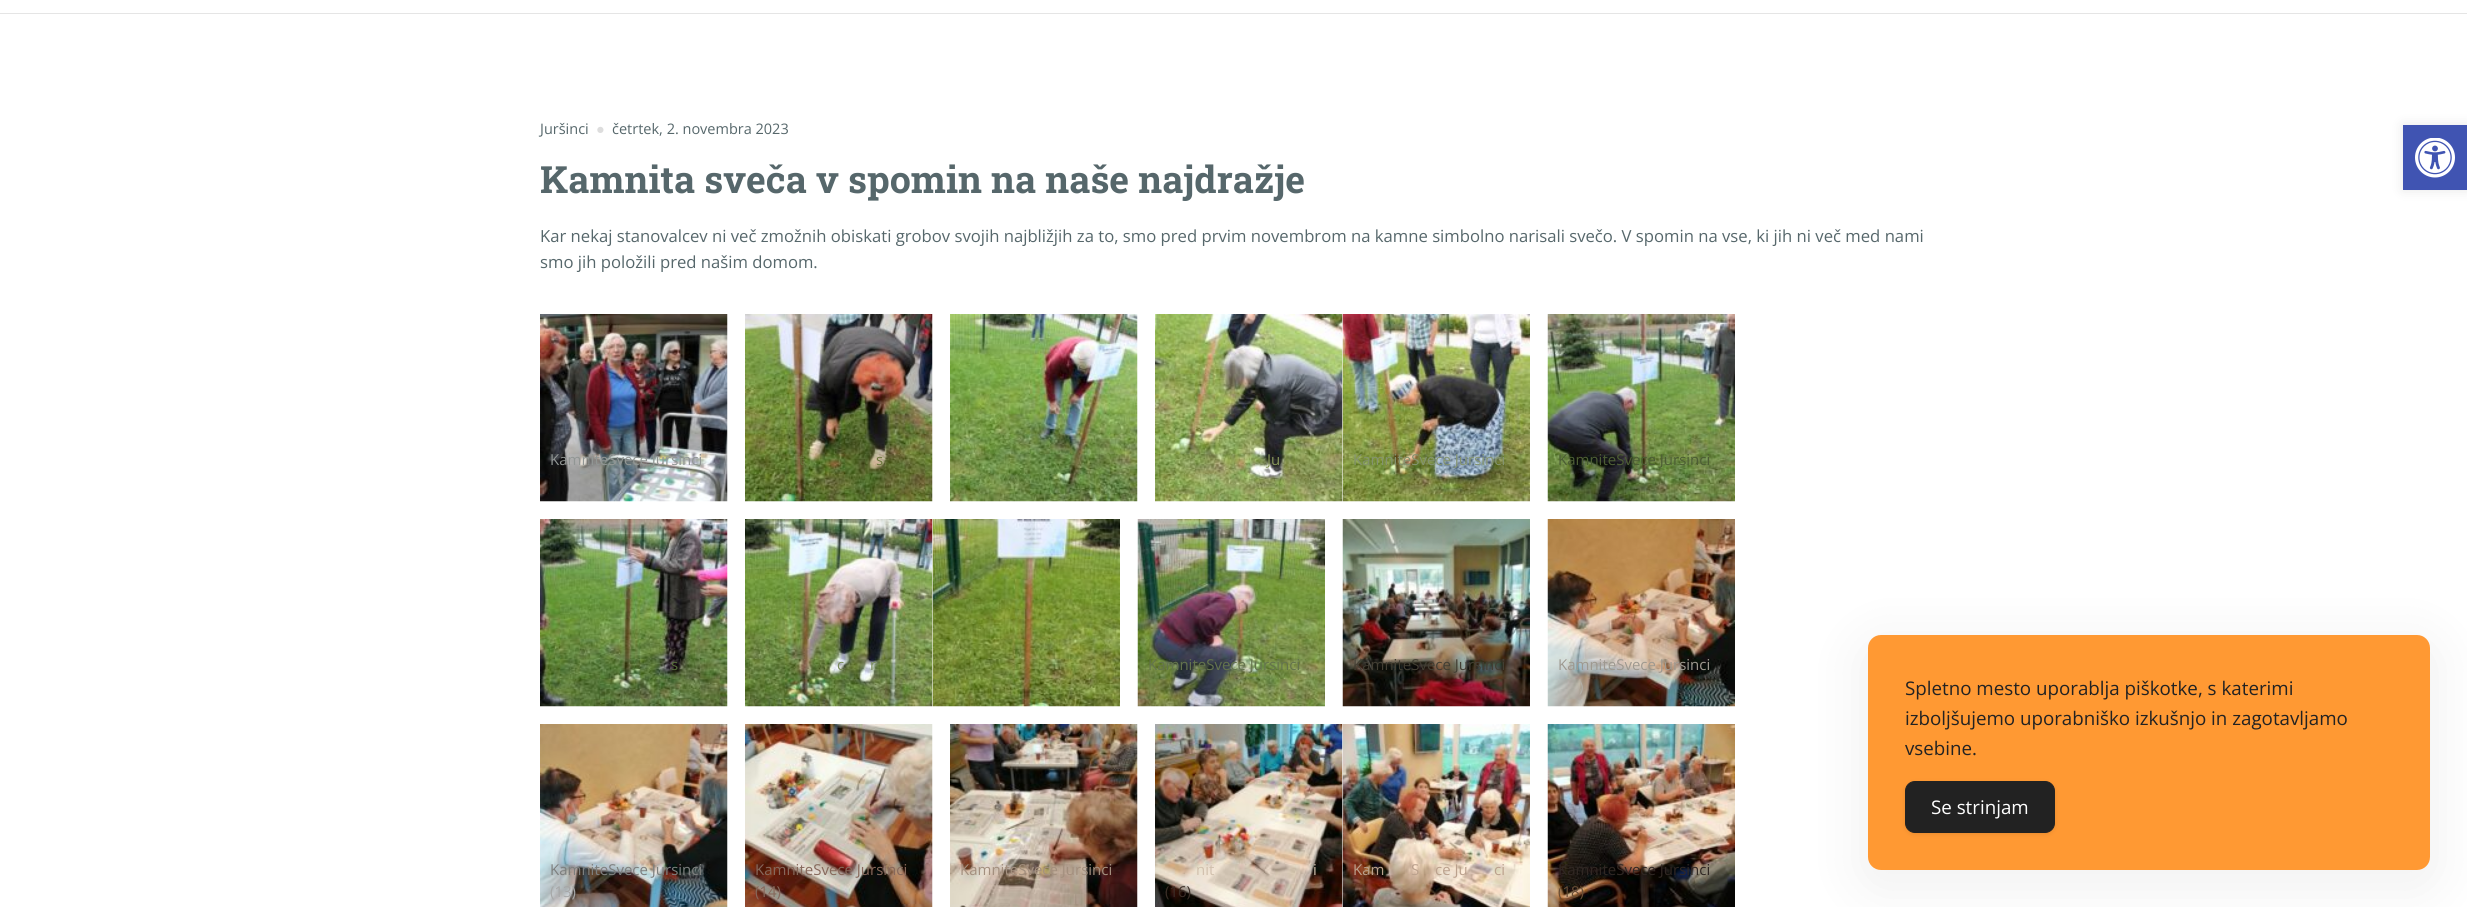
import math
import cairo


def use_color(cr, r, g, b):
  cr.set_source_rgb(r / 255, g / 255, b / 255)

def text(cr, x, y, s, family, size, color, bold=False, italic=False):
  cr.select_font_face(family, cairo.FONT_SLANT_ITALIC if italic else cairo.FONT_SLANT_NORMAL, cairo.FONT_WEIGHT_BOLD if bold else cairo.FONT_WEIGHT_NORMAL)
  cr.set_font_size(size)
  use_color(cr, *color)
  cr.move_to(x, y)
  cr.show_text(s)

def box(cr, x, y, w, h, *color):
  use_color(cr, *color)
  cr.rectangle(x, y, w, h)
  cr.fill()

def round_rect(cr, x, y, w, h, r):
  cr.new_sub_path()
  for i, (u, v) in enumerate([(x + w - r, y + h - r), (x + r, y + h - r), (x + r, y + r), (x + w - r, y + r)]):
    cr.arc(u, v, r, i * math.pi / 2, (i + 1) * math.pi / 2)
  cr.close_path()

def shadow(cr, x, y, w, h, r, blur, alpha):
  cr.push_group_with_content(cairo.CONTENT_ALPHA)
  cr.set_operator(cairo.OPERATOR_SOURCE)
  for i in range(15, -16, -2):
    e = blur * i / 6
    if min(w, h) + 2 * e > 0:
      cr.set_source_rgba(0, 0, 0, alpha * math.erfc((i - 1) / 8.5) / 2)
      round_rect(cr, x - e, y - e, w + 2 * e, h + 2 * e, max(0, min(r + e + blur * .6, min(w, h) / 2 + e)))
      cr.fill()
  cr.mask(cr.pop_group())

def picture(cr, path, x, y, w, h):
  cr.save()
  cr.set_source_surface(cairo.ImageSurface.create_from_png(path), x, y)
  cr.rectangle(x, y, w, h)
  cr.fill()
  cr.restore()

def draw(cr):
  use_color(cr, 255, 255, 255)
  cr.paint()
  box(cr, 0, 13, 2467, 1, 229, 229, 229)
  picture(cr, "img_01.png", 540, 314, 188, 188)
  picture(cr, "img_02.png", 745, 314, 188, 188)
  picture(cr, "img_03.png", 950, 314, 188, 188)
  picture(cr, "img_04.png", 1155, 314, 188, 188)
  picture(cr, "img_05.png", 1342, 314, 188, 188)
  picture(cr, "img_06.png", 1547, 314, 188, 188)
  picture(cr, "img_07.png", 540, 519, 188, 188)
  picture(cr, "img_08.png", 745, 519, 188, 188)
  picture(cr, "img_09.png", 932, 519, 188, 188)
  picture(cr, "img_10.png", 1137, 519, 188, 188)
  picture(cr, "img_11.png", 1342, 519, 188, 188)
  picture(cr, "img_12.png", 1547, 519, 188, 188)
  picture(cr, "img_13.png", 540, 724, 188, 183)
  picture(cr, "img_14.png", 745, 724, 188, 183)
  picture(cr, "img_15.png", 950, 724, 188, 183)
  picture(cr, "img_16.png", 1155, 724, 188, 183)
  picture(cr, "img_17.png", 1342, 724, 188, 183)
  picture(cr, "img_18.png", 1547, 724, 188, 183)
  use_color(cr, 0, 0, 0)
  shadow(cr, 1855, 635, 588, 260, 25, 25, 0.05)
  use_color(cr, 255, 153, 51)
  round_rect(cr, 1868, 635, 562, 235, 13)
  cr.fill()
  use_color(cr, 0, 0, 0)
  shadow(cr, 1905, 783, 150, 51, 10, 2.5, 0.1)
  use_color(cr, 34, 34, 34)
  round_rect(cr, 1905.5, 781.5, 149, 51, 9.5)
  cr.fill_preserve()
  cr.set_line_width(1)
  cr.stroke()
  use_color(cr, 0, 0, 0)
  shadow(cr, 2403, 125, 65, 65, 0, 6, 0.1)
  box(cr, 2403, 125, 64, 65, 64, 84, 178)
  picture(cr, "img_19.png", 2415, 138, 40, 40)
  text(cr, 540, 134, "Juršinci", "Open Sans", 14.5, (86, 103, 107))
  text(cr, 596, 134, "●", "Liberation Sans", 14.5, (221, 221, 221))
  text(cr, 612, 134, "četrtek, 2. novembra 2023", "Open Sans", 14.5, (86, 103, 107))
  text(cr, 540, 193, "Kamnita sveča v spomin na naše najdražje", "Roboto Slab", 37.5, (86, 103, 107), bold=True)
  text(cr, 540, 242, "Kar nekaj stanovalcev ni več zmožnih obiskati grobov svojih najbližjih za to, smo pred prvim novembrom na kamne simbolno narisali svečo. V spomin na vse, ki jih ni več med nami", "Open Sans", 16.67, (86, 103, 107))
  text(cr, 540, 268, "smo jih položili pred našim domom.", "Open Sans", 16.67, (86, 103, 107))
  text(cr, 550, 465, "KamniteSvece Jursinci", "Open Sans", 15, (145, 150, 148))
  text(cr, 799, 465, "t", "Open Sans", 15, (107, 119, 59))
  text(cr, 876, 465, "s", "Open Sans", 15, (107, 119, 59))
  text(cr, 1267, 465, "Ju", "Open Sans", 15, (134, 149, 88))
  text(cr, 1353, 465, "KamniteSvece Jursinci", "Open Sans", 15, (132, 147, 111))
  text(cr, 1558, 465, "KamniteSvece Jursinci", "Open Sans", 15, (76, 93, 52))
  text(cr, 671, 670, "s", "Open Sans", 15, (85, 110, 58))
  text(cr, 837, 670, "c", "Open Sans", 15, (122, 140, 90))
  text(cr, 870, 670, "r", "Open Sans", 15, (122, 140, 90))
  text(cr, 1148, 670, "KamniteSvece Jursinci", "Open Sans", 15, (99, 115, 77))
  text(cr, 1353, 670, "KamniteSvece Jursinci", "Open Sans", 15, (66, 62, 51))
  text(cr, 1558, 670, "KamniteSvece Jursinci", "Open Sans", 15, (158, 153, 144))
  text(cr, 1579, 692, ")", "Open Sans", 15, (178, 174, 166))
  text(cr, 550, 875, "KamniteSvece Jursinci", "Open Sans", 15, (125, 127, 126))
  text(cr, 550, 897, "(13)", "Open Sans", 15, (166, 167, 167))
  text(cr, 755, 875, "KamniteSvece Jursinci", "Open Sans", 15, (134, 104, 91))
  text(cr, 755, 897, "(14)", "Open Sans", 15, (134, 104, 91))
  text(cr, 960, 875, "KamniteSvece Jursinci", "Open Sans", 15, (163, 143, 126))
  text(cr, 1196, 875, "nit", "Open Sans", 15, (209, 192, 173))
  text(cr, 1313, 875, "i", "Open Sans", 15, (209, 192, 173))
  text(cr, 1165, 897, "(16)", "Open Sans", 15, (59, 46, 39))
  text(cr, 1353, 875, "Kam", "Open Sans", 15, (187, 161, 141))
  text(cr, 1411, 875, "S", "Open Sans", 15, (187, 161, 141))
  text(cr, 1435, 875, "ce Ju", "Open Sans", 15, (187, 161, 141))
  text(cr, 1494, 875, "ci", "Open Sans", 15, (187, 161, 141))
  text(cr, 1558, 875, "KamniteSvece Jursinci", "Open Sans", 15, (48, 39, 35))
  text(cr, 1558, 897, "(18)", "Open Sans", 15, (105, 77, 52))
  text(cr, 1905, 695, "Spletno mesto uporablja piškotke, s katerimi", "Open Sans", 18.75, (34, 34, 34))
  text(cr, 1905, 725, "izboljšujemo uporabniško izkušnjo in zagotavljamo", "Open Sans", 18.75, (34, 34, 34))
  text(cr, 1905, 755, "vsebine.", "Open Sans", 18.75, (34, 34, 34))
  text(cr, 1931, 814, "Se strinjam", "Open Sans", 18.75, (255, 255, 255))


surface = cairo.ImageSurface(cairo.FORMAT_RGB24, 2467, 907)
cr = cairo.Context(surface)
options = cairo.FontOptions()
options.set_hint_metrics(cairo.HINT_METRICS_OFF)
options.set_hint_style(cairo.HINT_STYLE_NONE)
cr.set_font_options(options)
cr.set_miter_limit(4)
draw(cr)
surface.write_to_png("out.png")
